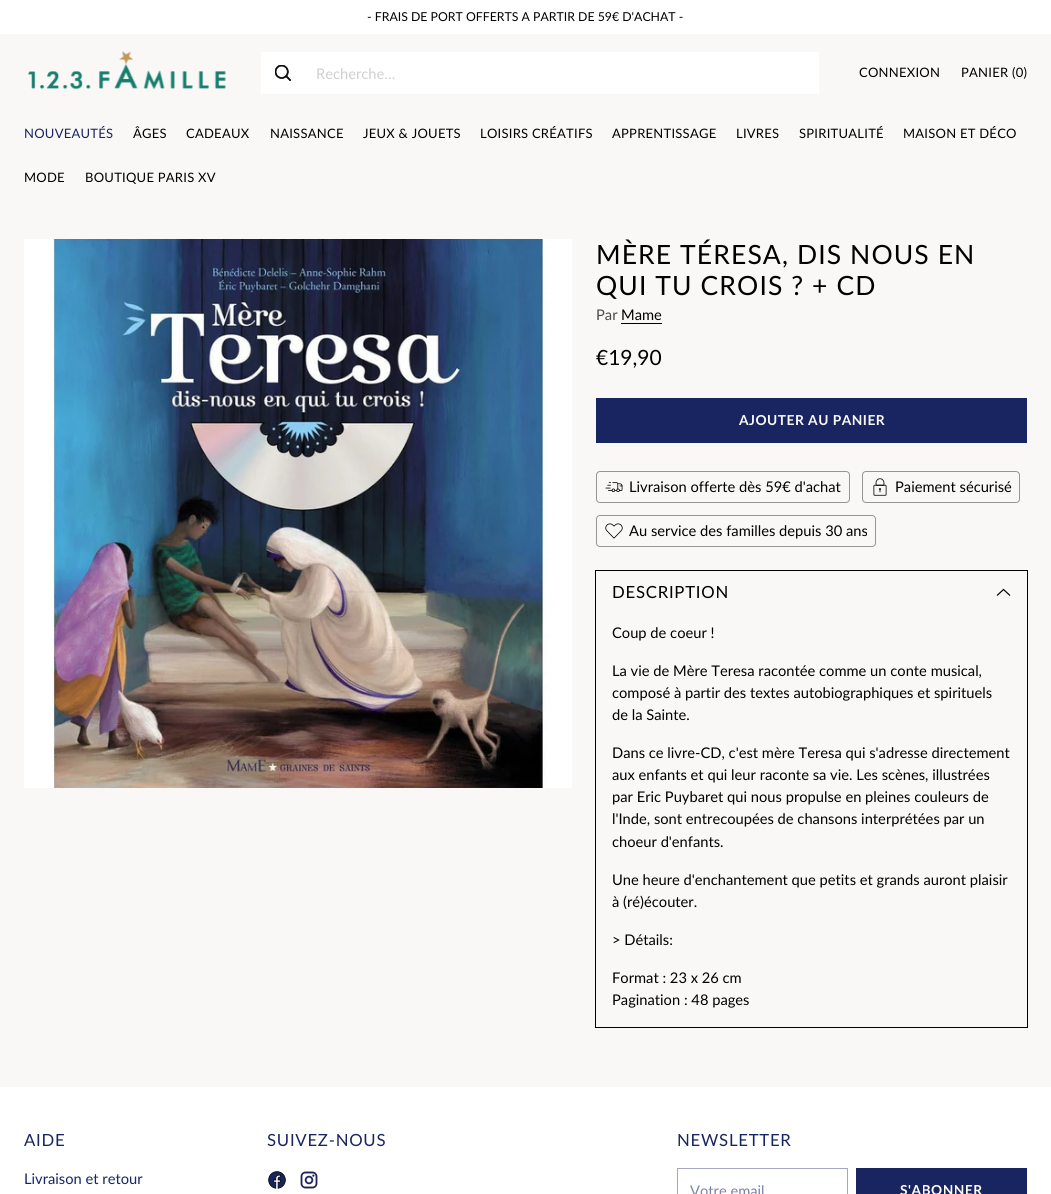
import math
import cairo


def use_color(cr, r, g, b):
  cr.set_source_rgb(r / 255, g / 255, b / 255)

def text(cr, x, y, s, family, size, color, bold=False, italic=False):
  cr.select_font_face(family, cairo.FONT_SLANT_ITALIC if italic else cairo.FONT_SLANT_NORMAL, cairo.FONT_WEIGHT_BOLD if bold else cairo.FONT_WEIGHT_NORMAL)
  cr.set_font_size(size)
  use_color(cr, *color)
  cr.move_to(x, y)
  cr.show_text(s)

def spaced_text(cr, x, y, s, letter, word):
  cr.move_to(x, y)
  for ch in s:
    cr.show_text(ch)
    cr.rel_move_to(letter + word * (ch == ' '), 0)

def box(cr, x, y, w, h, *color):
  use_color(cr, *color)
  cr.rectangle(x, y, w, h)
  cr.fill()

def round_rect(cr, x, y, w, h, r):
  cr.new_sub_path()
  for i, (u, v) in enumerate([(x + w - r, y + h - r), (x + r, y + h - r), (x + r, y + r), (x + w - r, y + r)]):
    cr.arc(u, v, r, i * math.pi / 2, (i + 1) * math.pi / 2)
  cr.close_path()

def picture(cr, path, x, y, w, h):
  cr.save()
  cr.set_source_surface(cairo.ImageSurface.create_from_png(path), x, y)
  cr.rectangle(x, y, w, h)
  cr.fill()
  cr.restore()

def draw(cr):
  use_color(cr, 249, 248, 246)
  cr.paint()
  box(cr, 0, 0, 1051, 34, 255, 255, 255)
  picture(cr, "img_01.png", 28, 51, 198, 39)
  cr.rectangle(261.5, 52.5, 557, 41)
  cr.set_line_width(1)
  cr.stroke()
  box(cr, 262, 53, 556, 40, 255, 255, 255)
  picture(cr, "img_02.png", 275, 65, 16, 16)
  picture(cr, "img_03.png", 24, 239, 548, 549)
  box(cr, 621, 323, 41, 1, 0, 0, 0)
  box(cr, 596, 398, 431, 45, 25, 37, 97)
  round_rect(cr, 596.5, 471.5, 253, 31, 3.5)
  use_color(cr, 149, 149, 148)
  cr.stroke()
  picture(cr, "img_04.png", 605, 481, 18, 12)
  round_rect(cr, 862.5, 471.5, 157, 31, 3.5)
  cr.stroke()
  picture(cr, "img_05.png", 873, 478, 14, 18)
  round_rect(cr, 596.5, 515.5, 279, 31, 3.5)
  cr.stroke()
  picture(cr, "img_06.png", 605, 523, 18, 16)
  cr.rectangle(595.5, 570.5, 432, 457)
  use_color(cr, 0, 0, 0)
  cr.stroke()
  cr.new_path()
  cr.move_to(997, 595.5)
  cr.line_to(1003.5, 589.5)
  cr.line_to(1010, 595.5)
  cr.set_line_width(1.2)
  cr.stroke()
  box(cr, 0, 1087, 1051, 107, 255, 255, 255)
  picture(cr, "img_07.png", 268, 1171, 18, 18)
  picture(cr, "img_08.png", 300, 1171, 18, 18)
  cr.rectangle(677.5, 1168.5, 170, 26)
  use_color(cr, 163, 168, 192)
  cr.set_line_width(1)
  cr.stroke()
  box(cr, 856, 1168, 171, 26, 25, 37, 97)
  text(cr, 367, 21, "- FRAIS DE PORT OFFERTS A PARTIR DE 59€ D'ACHAT -", "Lato", 12.3, (0, 0, 0))
  text(cr, 316, 79, "Recherche…", "Lato", 14.7, (207, 207, 207))
  cr.set_font_size(13)
  use_color(cr, 0, 0, 0)
  spaced_text(cr, 859, 77, "CONNEXION", 0.25, 0)
  spaced_text(cr, 961, 77, "PANIER (0)", 0.25, 0)
  use_color(cr, 25, 37, 97)
  spaced_text(cr, 24, 138, "NOUVEAUTÉS", 0.25, 0)
  use_color(cr, 0, 0, 0)
  spaced_text(cr, 133, 138, "ÂGES", 0.25, 0)
  spaced_text(cr, 186, 138, "CADEAUX", 0.25, 0)
  spaced_text(cr, 270, 138, "NAISSANCE", 0.25, 0)
  spaced_text(cr, 363, 138, "JEUX & JOUETS", 0.25, 0)
  spaced_text(cr, 480, 138, "LOISIRS CRÉATIFS", 0.25, 0)
  spaced_text(cr, 612, 138, "APPRENTISSAGE", 0.25, 0)
  spaced_text(cr, 736, 138, "LIVRES", 0.25, 0)
  spaced_text(cr, 799, 138, "SPIRITUALITÉ", 0.25, 0)
  spaced_text(cr, 903, 138, "MAISON ET DÉCO", 0.25, 0)
  spaced_text(cr, 24, 182, "MODE", 0.25, 0)
  spaced_text(cr, 85, 182, "BOUTIQUE PARIS XV", 0.25, 0)
  cr.set_font_size(26.5)
  spaced_text(cr, 596, 264, "MÈRE TÉRESA, DIS NOUS EN", 1.1, 0)
  spaced_text(cr, 596, 295, "QUI TU CROIS ? + CD", 1.1, 0)
  text(cr, 596, 320, "Par", "Lato", 14.7, (75, 74, 74))
  text(cr, 621, 320, "Mame", "Lato", 14.7, (0, 0, 0))
  text(cr, 596, 365, "€19,90", "Lato", 21, (0, 0, 0))
  cr.select_font_face("Lato", cairo.FONT_SLANT_NORMAL, cairo.FONT_WEIGHT_BOLD)
  cr.set_font_size(13.75)
  use_color(cr, 249, 248, 246)
  spaced_text(cr, 739, 425, "AJOUTER AU PANIER", 0.5, 0)
  text(cr, 629, 492, "Livraison offerte dès 59€ d'achat", "Lato", 14.7, (0, 0, 0))
  text(cr, 895, 492, "Paiement sécurisé", "Lato", 14.7, (0, 0, 0))
  text(cr, 629, 536, "Au service des familles depuis 30 ans", "Lato", 14.7, (0, 0, 0))
  cr.set_font_size(16.75)
  spaced_text(cr, 612, 598, "DESCRIPTION", 0.75, 0)
  text(cr, 612, 638, "Coup de coeur !", "Lato", 14.7, (0, 0, 0))
  text(cr, 612, 676, "La vie de Mère Teresa racontée comme un conte musical,", "Lato", 14.7, (0, 0, 0))
  text(cr, 612, 698, "composé à partir des textes autobiographiques et spirituels", "Lato", 14.7, (0, 0, 0))
  text(cr, 612, 720, "de la Sainte.", "Lato", 14.7, (0, 0, 0))
  text(cr, 612, 758, "Dans ce livre-CD, c'est mère Teresa qui s'adresse directement", "Lato", 14.7, (0, 0, 0))
  text(cr, 612, 780, "aux enfants et qui leur raconte sa vie. Les scènes, illustrées", "Lato", 14.7, (0, 0, 0))
  text(cr, 612, 802, "par Eric Puybaret qui nous propulse en pleines couleurs de", "Lato", 14.7, (0, 0, 0))
  text(cr, 612, 824, "l'Inde, sont entrecoupées de chansons interprétées par un", "Lato", 14.7, (0, 0, 0))
  text(cr, 612, 847, "choeur d'enfants.", "Lato", 14.7, (0, 0, 0))
  text(cr, 612, 885, "Une heure d'enchantement que petits et grands auront plaisir", "Lato", 14.7, (0, 0, 0))
  text(cr, 612, 907, "à (ré)écouter.", "Lato", 14.7, (0, 0, 0))
  text(cr, 612, 945, "> Détails:", "Lato", 14.7, (0, 0, 0))
  text(cr, 612, 983, "Format : 23 x 26 cm", "Lato", 14.7, (0, 0, 0))
  text(cr, 612, 1005, "Pagination : 48 pages", "Lato", 14.7, (0, 0, 0))
  cr.set_font_size(16.75)
  use_color(cr, 25, 37, 97)
  spaced_text(cr, 24, 1146, "AIDE", 0.75, 0)
  text(cr, 24, 1184, "Livraison et retour", "Lato", 14.7, (25, 37, 97))
  cr.set_font_size(16.75)
  spaced_text(cr, 267, 1146, "SUIVEZ-NOUS", 0.75, 0)
  spaced_text(cr, 677, 1146, "NEWSLETTER", 0.75, 0)
  text(cr, 690, 1196, "Votre email", "Lato", 14.7, (124, 131, 165))
  cr.select_font_face("Lato", cairo.FONT_SLANT_NORMAL, cairo.FONT_WEIGHT_BOLD)
  cr.set_font_size(13.75)
  use_color(cr, 255, 255, 255)
  spaced_text(cr, 900, 1195, "S'ABONNER", 0.5, 0)


surface = cairo.ImageSurface(cairo.FORMAT_RGB24, 1051, 1194)
cr = cairo.Context(surface)
options = cairo.FontOptions()
options.set_hint_metrics(cairo.HINT_METRICS_OFF)
options.set_hint_style(cairo.HINT_STYLE_NONE)
cr.set_font_options(options)
cr.set_miter_limit(4)
draw(cr)
surface.write_to_png("out.png")
